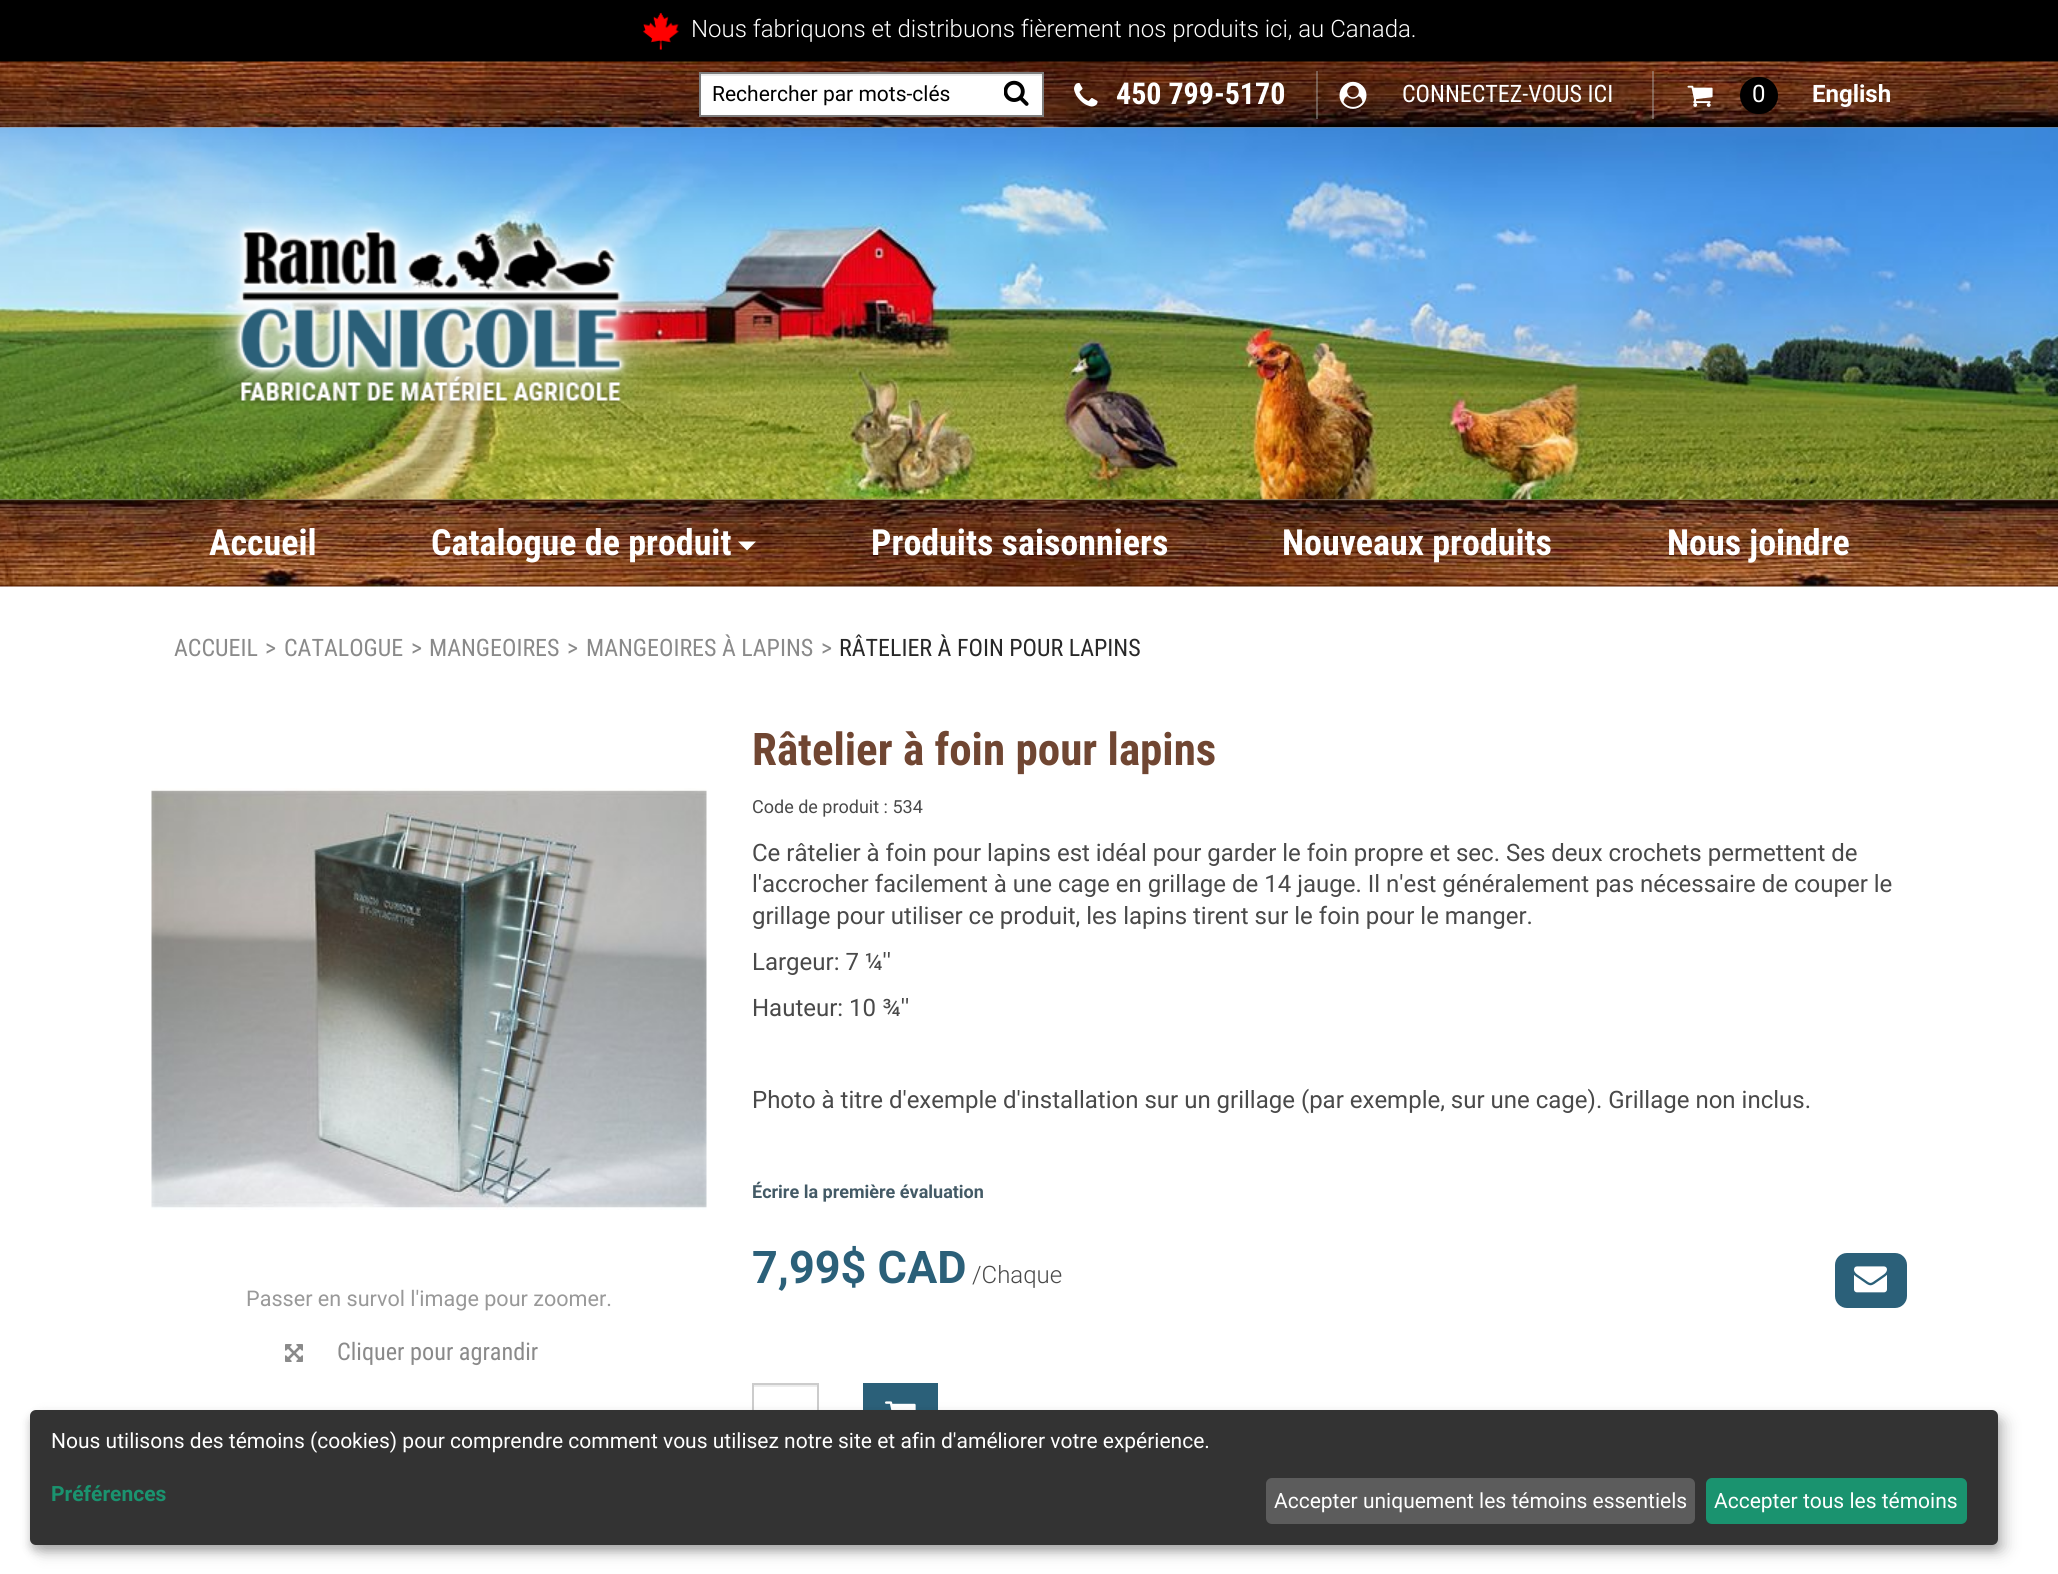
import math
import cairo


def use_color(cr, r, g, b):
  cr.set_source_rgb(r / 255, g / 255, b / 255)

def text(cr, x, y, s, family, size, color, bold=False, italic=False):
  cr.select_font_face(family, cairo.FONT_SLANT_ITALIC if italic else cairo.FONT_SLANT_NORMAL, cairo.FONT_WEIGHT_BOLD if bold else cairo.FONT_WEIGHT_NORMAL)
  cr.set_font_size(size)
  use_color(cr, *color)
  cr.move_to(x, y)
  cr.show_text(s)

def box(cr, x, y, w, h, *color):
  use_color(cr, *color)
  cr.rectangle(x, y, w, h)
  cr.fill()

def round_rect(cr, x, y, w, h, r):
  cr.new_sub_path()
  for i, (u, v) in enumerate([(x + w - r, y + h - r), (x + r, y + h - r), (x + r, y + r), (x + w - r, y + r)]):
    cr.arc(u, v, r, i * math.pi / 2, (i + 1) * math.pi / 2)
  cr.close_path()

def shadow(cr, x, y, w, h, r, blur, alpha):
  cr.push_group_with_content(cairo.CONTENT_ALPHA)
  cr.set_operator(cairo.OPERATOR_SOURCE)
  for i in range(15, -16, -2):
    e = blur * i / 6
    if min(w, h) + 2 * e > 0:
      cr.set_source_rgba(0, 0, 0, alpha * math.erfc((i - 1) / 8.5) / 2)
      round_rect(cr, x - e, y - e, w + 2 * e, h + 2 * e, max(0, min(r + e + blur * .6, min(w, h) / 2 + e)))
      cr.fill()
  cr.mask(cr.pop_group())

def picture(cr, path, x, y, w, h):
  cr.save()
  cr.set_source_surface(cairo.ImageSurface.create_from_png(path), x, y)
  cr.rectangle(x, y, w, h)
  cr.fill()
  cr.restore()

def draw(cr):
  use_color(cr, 255, 255, 255)
  cr.paint()
  box(cr, 0, 0, 2058, 62, 0, 0, 0)
  picture(cr, "img_01.png", 643, 12, 36, 38)
  picture(cr, "img_02.png", 0, 61, 2058, 67)
  box(cr, 701, 76, 341, 39, 255, 255, 255)
  box(cr, 701, 74, 342, 2, 236, 236, 236)
  cr.rectangle(700, 73, 343, 43)
  use_color(cr, 126, 126, 126)
  cr.stroke()
  picture(cr, "img_03.png", 1004, 80, 25, 26)
  cr.set_source_rgba(0.729, 0.745, 0.745, 0.4)
  cr.rectangle(1316, 71, 2, 48)
  cr.fill()
  picture(cr, "img_04.png", 1074, 83, 24, 24)
  cr.rectangle(1652, 71, 2, 48)
  cr.fill()
  picture(cr, "img_05.png", 1339, 81, 28, 28)
  picture(cr, "img_06.png", 1687, 85, 26, 22)
  use_color(cr, 0, 0, 0)
  round_rect(cr, 1740, 77, 38, 37, 18.5)
  cr.fill()
  picture(cr, "img_07.png", 0, 127, 2058, 373)
  picture(cr, "img_08.png", 208, 203, 442, 203)
  picture(cr, "img_09.png", 0, 499, 2058, 88)
  use_color(cr, 255, 255, 255)
  cr.new_path()
  cr.move_to(738, 541.5)
  cr.line_to(756, 541.5)
  cr.line_to(747, 550.5)
  cr.close_path()
  cr.fill()
  use_color(cr, 43, 96, 121)
  round_rect(cr, 1836, 1254, 70, 53, 11)
  cr.fill_preserve()
  cr.stroke()
  picture(cr, "img_10.png", 1854, 1266, 33, 27)
  box(cr, 753, 1385, 65, 2, 236, 236, 236)
  cr.rectangle(753, 1384, 65, 58)
  use_color(cr, 204, 204, 204)
  cr.stroke()
  box(cr, 863, 1383, 75, 27, 43, 96, 121)
  picture(cr, "img_11.png", 885, 1401, 31, 9)
  picture(cr, "img_12.png", 151, 788, 556, 422)
  picture(cr, "img_13.png", 285, 1344, 18, 18)
  use_color(cr, 0, 0, 0)
  shadow(cr, 38, 1418, 1968, 135, 6, 7.5, 0.19)
  shadow(cr, 30, 1416, 1968, 135, 6, 4.5, 0.2)
  use_color(cr, 51, 51, 51)
  round_rect(cr, 30, 1410, 1968, 135, 6)
  cr.fill()
  use_color(cr, 92, 92, 92)
  round_rect(cr, 1266, 1478, 429, 46, 6)
  cr.fill()
  use_color(cr, 26, 147, 111)
  round_rect(cr, 1706, 1478, 261, 46, 6)
  cr.fill()
  text(cr, 691, 37, "Nous fabriquons et distribuons fièrement nos produits ici, au Canada.", "Roboto Light", 24, (255, 255, 255))
  text(cr, 712, 101, "Rechercher par mots-clés", "Roboto", 21, (0, 0, 0))
  text(cr, 1116, 104, "450 799-5170", "Roboto Condensed", 30, (255, 255, 255), bold=True)
  text(cr, 1402, 102, "CONNECTEZ-VOUS ICI", "Roboto Condensed", 24, (255, 255, 255))
  text(cr, 1752, 102, "0", "Roboto", 24, (255, 255, 255))
  text(cr, 1812, 102, "English", "Roboto", 24, (255, 255, 255), bold=True)
  text(cr, 209, 555, "Accueil", "Roboto Condensed", 36, (255, 255, 255), bold=True)
  text(cr, 431, 555, "Catalogue de produit", "Roboto Condensed", 36, (255, 255, 255), bold=True)
  text(cr, 871, 555, "Produits saisonniers", "Roboto Condensed", 36, (255, 255, 255), bold=True)
  text(cr, 1282, 555, "Nouveaux produits", "Roboto Condensed", 36, (255, 255, 255), bold=True)
  text(cr, 1667, 555, "Nous joindre", "Roboto Condensed", 36, (255, 255, 255), bold=True)
  text(cr, 174, 656, "ACCUEIL", "Roboto Condensed", 24, (138, 138, 138))
  text(cr, 265, 656, ">", "Roboto Condensed", 24, (138, 138, 138))
  text(cr, 284, 656, "CATALOGUE", "Roboto Condensed", 24, (138, 138, 138))
  text(cr, 411, 656, ">", "Roboto Condensed", 24, (138, 138, 138))
  text(cr, 429, 656, "MANGEOIRES", "Roboto Condensed", 24, (138, 138, 138))
  text(cr, 567, 656, ">", "Roboto Condensed", 24, (138, 138, 138))
  text(cr, 586, 656, "MANGEOIRES À LAPINS", "Roboto Condensed", 24, (138, 138, 138))
  text(cr, 821, 656, ">", "Roboto Condensed", 24, (138, 138, 138))
  text(cr, 839, 656, "RÂTELIER À FOIN POUR LAPINS", "Roboto Condensed", 24, (40, 40, 40))
  text(cr, 752, 765, "Râtelier à foin pour lapins", "Roboto Condensed", 45, (112, 70, 50), bold=True)
  text(cr, 752, 813, "Code de produit : 534", "Roboto", 18, (73, 73, 73))
  text(cr, 752, 861, "Ce râtelier à foin pour lapins est idéal pour garder le foin propre et sec. Ses deux crochets permettent de", "Roboto", 24, (73, 73, 73))
  text(cr, 752, 892, "l'accrocher facilement à une cage en grillage de 14 jauge. Il n'est généralement pas nécessaire de couper le", "Roboto", 24, (73, 73, 73))
  text(cr, 752, 924, "grillage pour utiliser ce produit, les lapins tirent sur le foin pour le manger.", "Roboto", 24, (73, 73, 73))
  text(cr, 752, 970, "Largeur: 7 ¼''", "Roboto", 24, (73, 73, 73))
  text(cr, 752, 1016, "Hauteur: 10 ¾''", "Roboto", 24, (73, 73, 73))
  text(cr, 752, 1108, "Photo à titre d'exemple d'installation sur un grillage (par exemple, sur une cage). Grillage non inclus.", "Roboto", 24, (73, 73, 73))
  text(cr, 752, 1198, "Écrire la première évaluation", "Roboto", 18, (67, 90, 102), bold=True)
  text(cr, 752, 1283, "7,99$ CAD", "Roboto", 45, (43, 96, 121), bold=True)
  text(cr, 972, 1283, "/Chaque", "Roboto Light", 24, (73, 73, 73))
  text(cr, 246, 1306, "Passer en survol l'image pour zoomer.", "Roboto", 21.6, (153, 153, 153))
  text(cr, 337, 1360, "Cliquer pour agrandir", "Roboto Condensed", 24.25, (138, 138, 138))
  text(cr, 51, 1448, "Nous utilisons des témoins (cookies) pour comprendre comment vous utilisez notre site et afin d'améliorer votre expérience.", "Roboto", 21, (255, 255, 255))
  text(cr, 51, 1501, "Préférences", "Roboto", 21, (26, 147, 111), bold=True)
  text(cr, 1274, 1508, "Accepter uniquement les témoins essentiels", "Roboto", 21, (255, 255, 255))
  text(cr, 1714, 1508, "Accepter tous les témoins", "Roboto", 21, (255, 255, 255))


surface = cairo.ImageSurface(cairo.FORMAT_RGB24, 2058, 1574)
cr = cairo.Context(surface)
options = cairo.FontOptions()
options.set_hint_metrics(cairo.HINT_METRICS_OFF)
options.set_hint_style(cairo.HINT_STYLE_NONE)
cr.set_font_options(options)
cr.set_miter_limit(4)
draw(cr)
surface.write_to_png("out.png")
